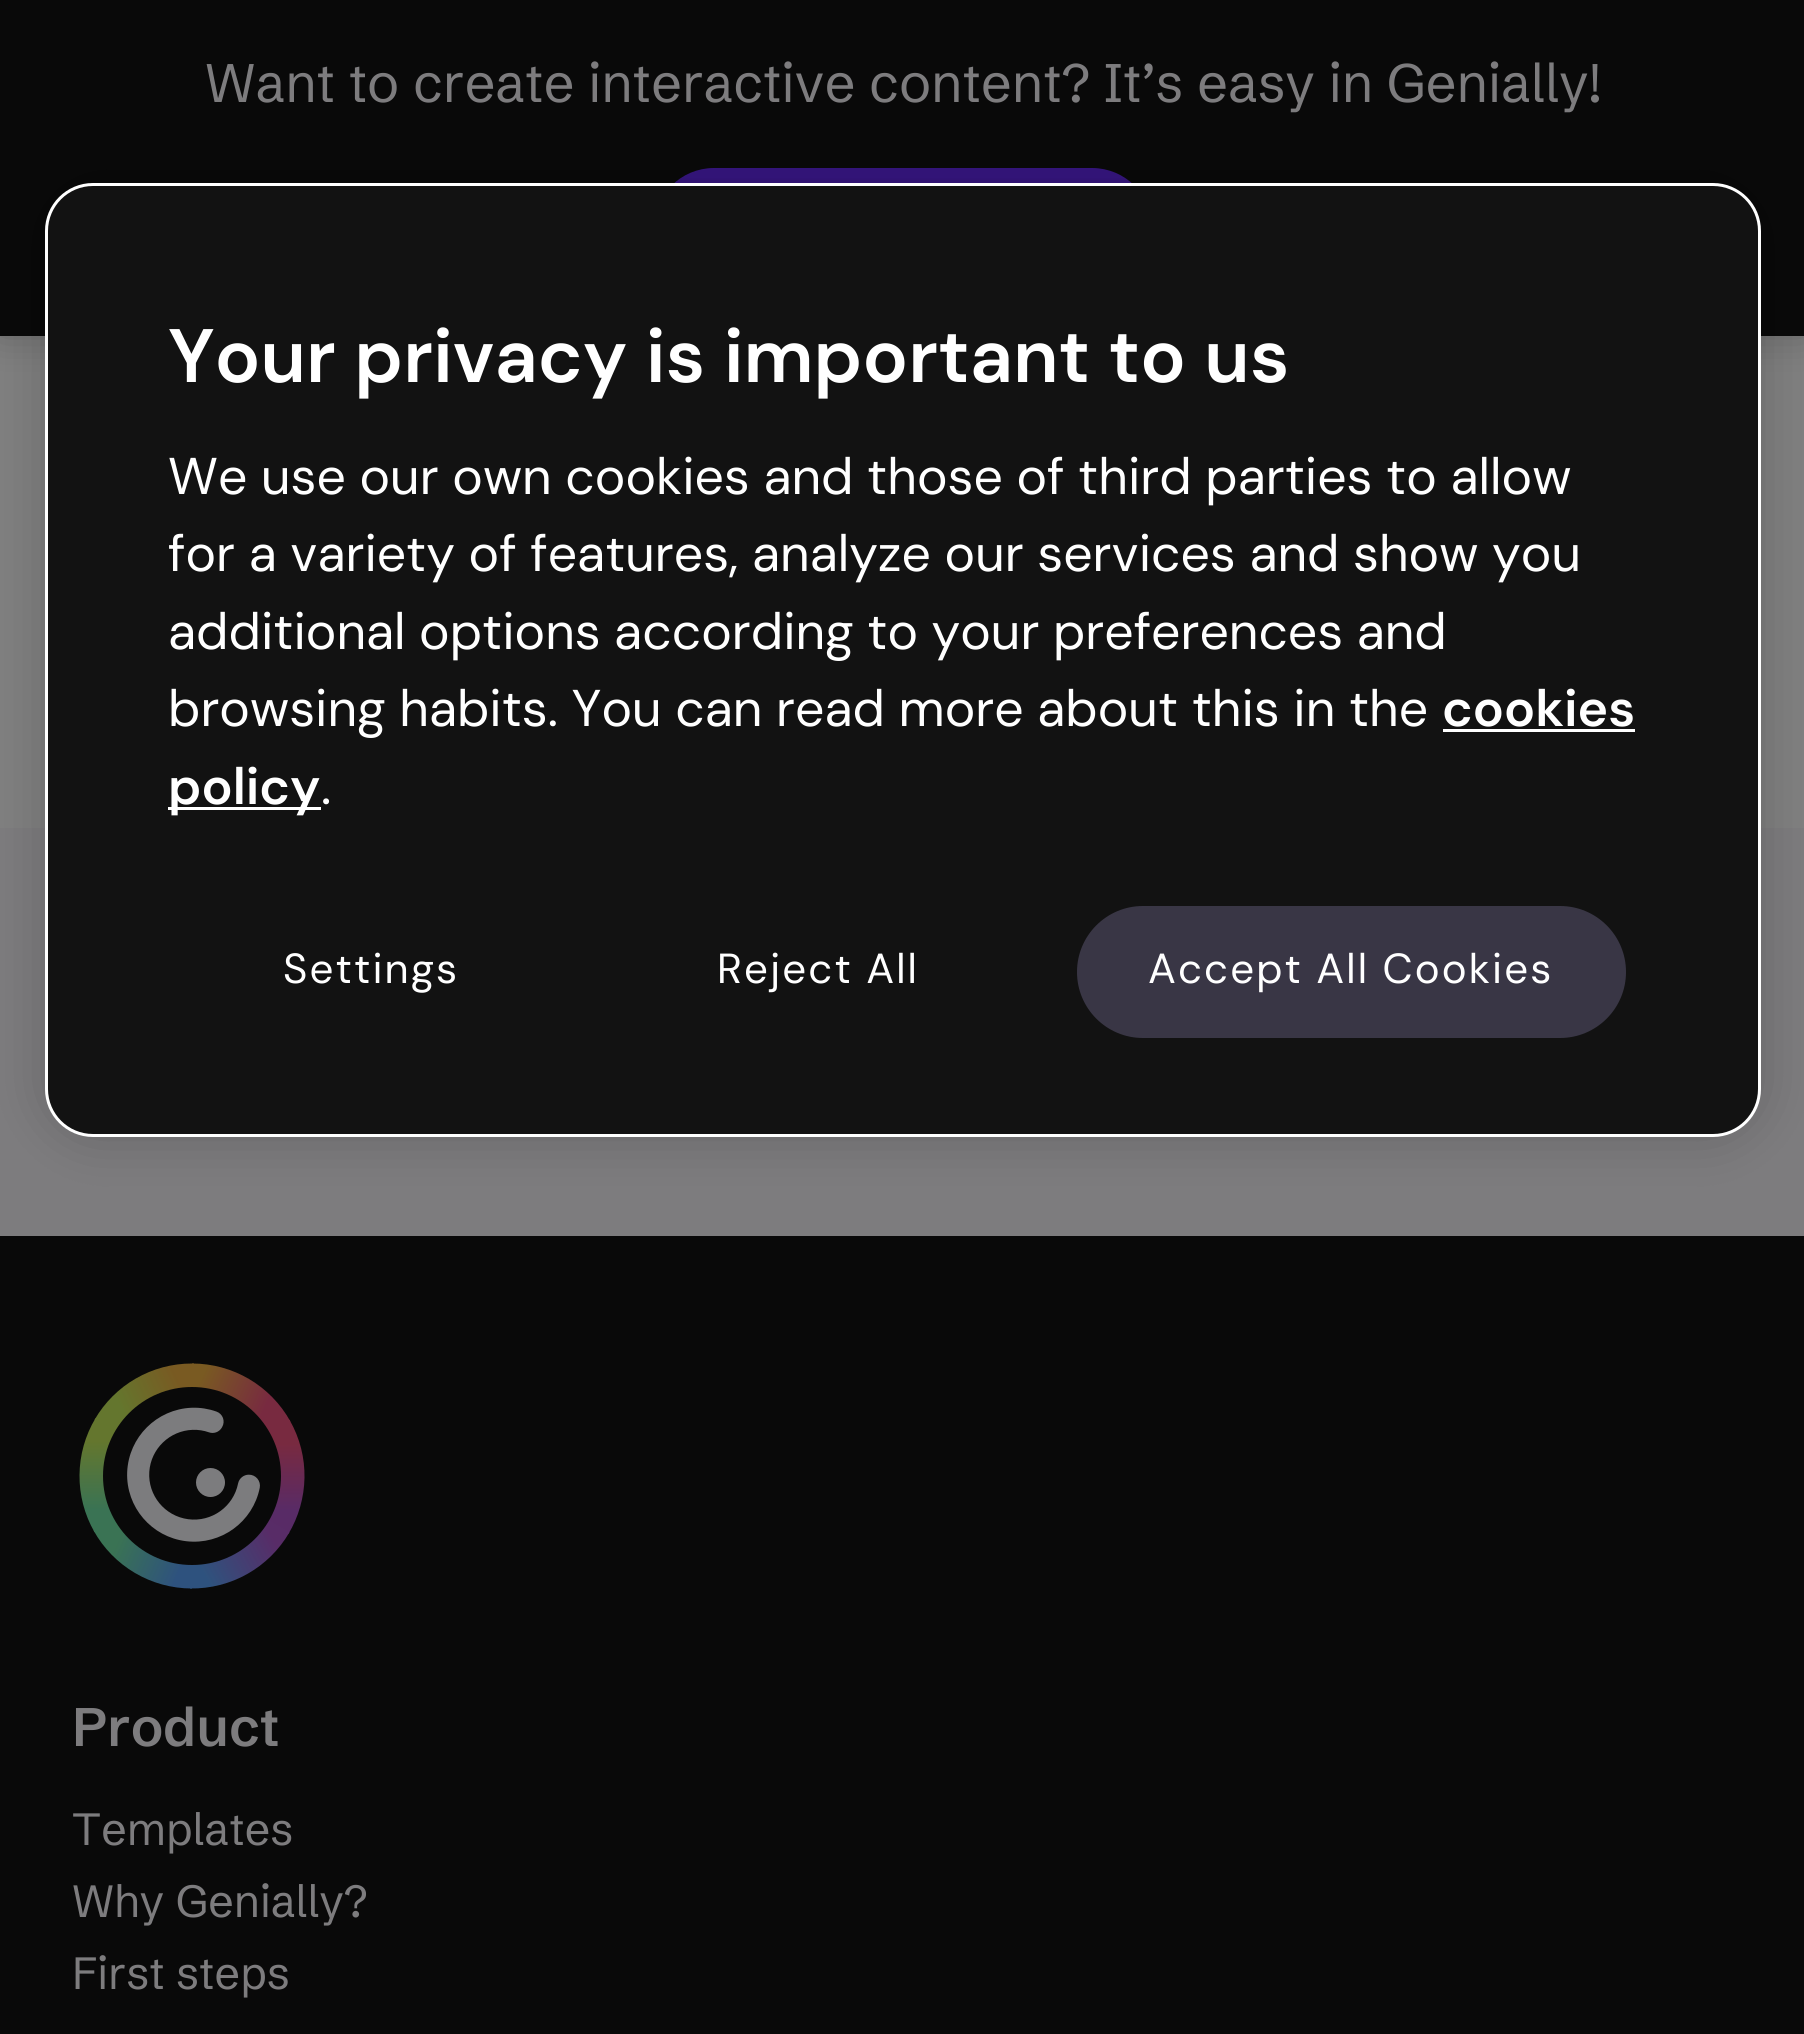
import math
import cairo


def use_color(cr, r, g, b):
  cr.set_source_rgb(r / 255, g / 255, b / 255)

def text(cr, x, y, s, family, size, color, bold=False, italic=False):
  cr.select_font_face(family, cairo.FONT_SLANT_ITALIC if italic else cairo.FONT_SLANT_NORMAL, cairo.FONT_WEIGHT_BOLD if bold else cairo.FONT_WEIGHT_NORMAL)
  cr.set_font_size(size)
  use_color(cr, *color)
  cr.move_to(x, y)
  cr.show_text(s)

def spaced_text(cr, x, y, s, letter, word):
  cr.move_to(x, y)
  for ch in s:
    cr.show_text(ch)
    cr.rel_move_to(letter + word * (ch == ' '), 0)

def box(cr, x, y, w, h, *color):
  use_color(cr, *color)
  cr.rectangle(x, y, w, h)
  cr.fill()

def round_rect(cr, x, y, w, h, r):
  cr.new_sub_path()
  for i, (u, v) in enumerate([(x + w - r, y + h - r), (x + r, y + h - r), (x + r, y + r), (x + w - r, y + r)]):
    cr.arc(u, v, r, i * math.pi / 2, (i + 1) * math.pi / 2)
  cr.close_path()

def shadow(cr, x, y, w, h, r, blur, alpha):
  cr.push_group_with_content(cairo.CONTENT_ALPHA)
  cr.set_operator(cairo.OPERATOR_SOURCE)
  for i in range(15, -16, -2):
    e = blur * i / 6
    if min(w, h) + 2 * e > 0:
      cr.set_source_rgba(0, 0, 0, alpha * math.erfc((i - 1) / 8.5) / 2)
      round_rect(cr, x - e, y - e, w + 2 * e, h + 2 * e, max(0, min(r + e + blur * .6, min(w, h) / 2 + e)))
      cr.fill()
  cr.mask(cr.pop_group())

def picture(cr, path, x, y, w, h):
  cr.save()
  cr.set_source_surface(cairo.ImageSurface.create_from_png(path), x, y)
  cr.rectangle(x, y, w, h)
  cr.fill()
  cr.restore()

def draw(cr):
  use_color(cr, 128, 128, 128)
  cr.paint()
  use_color(cr, 9, 9, 9)
  shadow(cr, 0, -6, 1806, 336, 0, 19.5, 0.3)
  box(cr, 0, 0, 1804, 336, 9, 9, 9)
  use_color(cr, 54, 21, 128)
  round_rect(cr, 654, 168, 498, 120, 60)
  cr.fill()
  box(cr, 0, 828, 1804, 408, 125, 124, 126)
  box(cr, 0, 1236, 1804, 798, 9, 9, 9)
  picture(cr, "img_01.png", 79, 1363, 226, 226)
  use_color(cr, 0, 0, 0)
  shadow(cr, 45, 183, 1716, 954, 48, 27, 0.2)
  use_color(cr, 18, 18, 18)
  round_rect(cr, 46.5, 184.5, 1713, 951, 46.5)
  cr.fill_preserve()
  use_color(cr, 255, 255, 255)
  cr.set_line_width(3)
  cr.stroke()
  box(cr, 1443, 729, 192, 3, 255, 255, 255)
  box(cr, 168, 807, 153, 3, 255, 255, 255)
  use_color(cr, 57, 54, 69)
  round_rect(cr, 1075.5, 904.5, 552, 135, 67.5)
  cr.fill_preserve()
  use_color(cr, 18, 18, 18)
  cr.stroke()
  text(cr, 205, 102, "Want to create interactive content? It’s easy in Genially!", "Schibsted Grotesk", 54, (125, 124, 126))
  text(cr, 72, 1746, "Product", "Schibsted Grotesk SemiBold", 54, (125, 124, 126))
  text(cr, 72, 1845, "Templates", "Schibsted Grotesk", 45, (125, 124, 126))
  text(cr, 72, 1917, "Why Genially?", "Schibsted Grotesk", 45, (125, 124, 126))
  text(cr, 72, 1989, "First steps", "Schibsted Grotesk", 45, (125, 124, 126))
  text(cr, 168, 382, "Your privacy is important to us", "DM Sans SemiBold", 75.6, (255, 255, 255))
  cr.select_font_face("DM Sans")
  cr.set_font_size(51.65)
  spaced_text(cr, 168, 494, "We use our own cookies and those of third parties to allow", 0, -0.1)
  spaced_text(cr, 168, 571, "for a variety of features, analyze our services and show you", 0, -0.1)
  spaced_text(cr, 168, 649, "additional options according to your preferences and", 0, -0.25)
  spaced_text(cr, 168, 726, "browsing habits. You can read more about this in the", 0, -0.1)
  text(cr, 1442, 726, "cookies", "DM Sans SemiBold", 51.65, (255, 255, 255))
  text(cr, 168, 804, "policy", "DM Sans SemiBold", 51.65, (255, 255, 255))
  text(cr, 321, 804, ".", "DM Sans", 51.65, (255, 255, 255))
  cr.set_font_size(42)
  spaced_text(cr, 283, 983, "Settings", 2.1, 0)
  spaced_text(cr, 717, 983, "Reject All", 2.1, 0)
  spaced_text(cr, 1148, 983, "Accept All Cookies", 2.1, 0)


surface = cairo.ImageSurface(cairo.FORMAT_RGB24, 1804, 2034)
cr = cairo.Context(surface)
options = cairo.FontOptions()
options.set_hint_metrics(cairo.HINT_METRICS_OFF)
options.set_hint_style(cairo.HINT_STYLE_NONE)
cr.set_font_options(options)
cr.set_miter_limit(4)
draw(cr)
surface.write_to_png("out.png")
